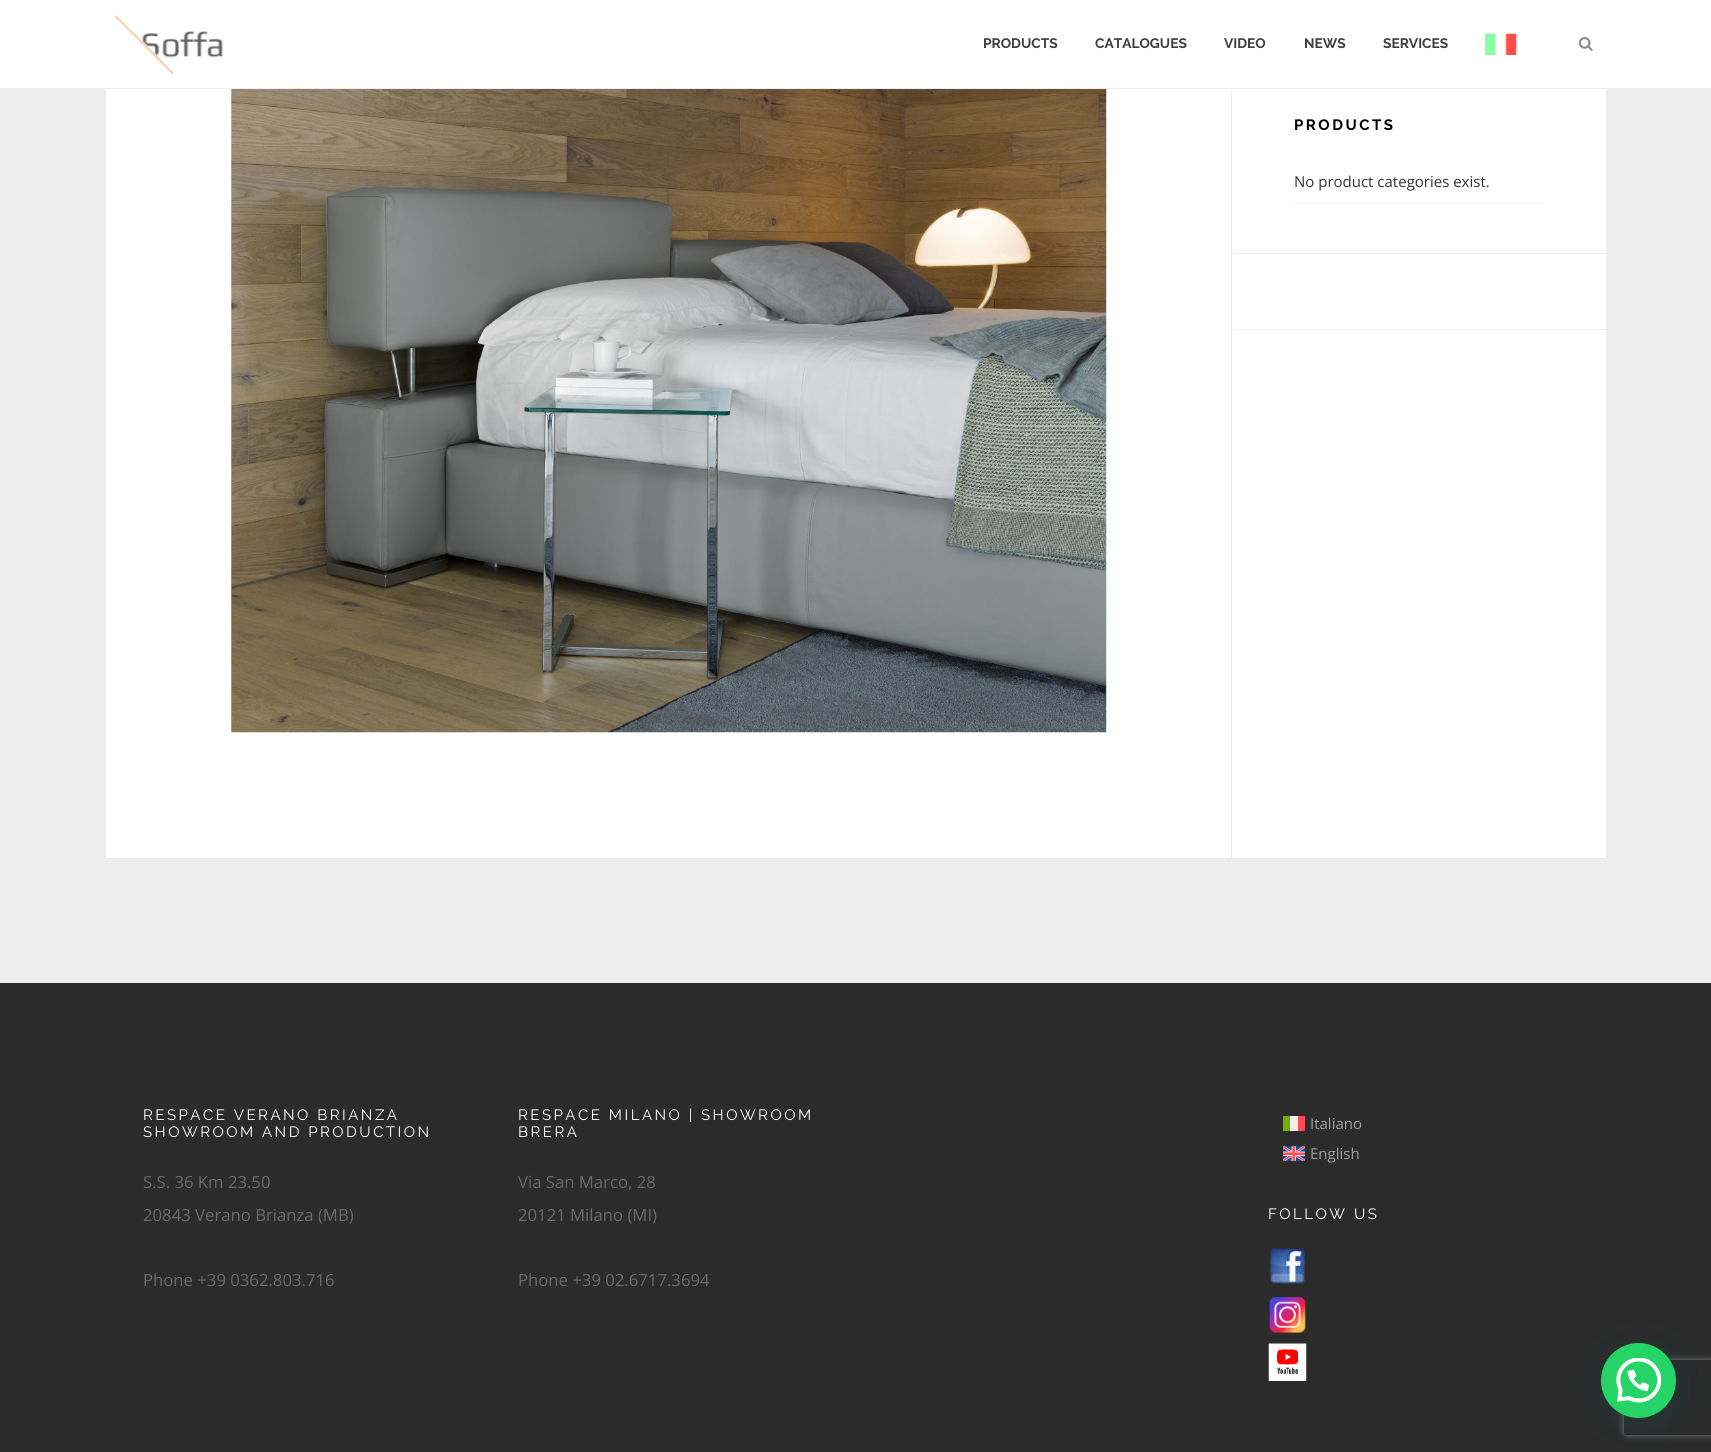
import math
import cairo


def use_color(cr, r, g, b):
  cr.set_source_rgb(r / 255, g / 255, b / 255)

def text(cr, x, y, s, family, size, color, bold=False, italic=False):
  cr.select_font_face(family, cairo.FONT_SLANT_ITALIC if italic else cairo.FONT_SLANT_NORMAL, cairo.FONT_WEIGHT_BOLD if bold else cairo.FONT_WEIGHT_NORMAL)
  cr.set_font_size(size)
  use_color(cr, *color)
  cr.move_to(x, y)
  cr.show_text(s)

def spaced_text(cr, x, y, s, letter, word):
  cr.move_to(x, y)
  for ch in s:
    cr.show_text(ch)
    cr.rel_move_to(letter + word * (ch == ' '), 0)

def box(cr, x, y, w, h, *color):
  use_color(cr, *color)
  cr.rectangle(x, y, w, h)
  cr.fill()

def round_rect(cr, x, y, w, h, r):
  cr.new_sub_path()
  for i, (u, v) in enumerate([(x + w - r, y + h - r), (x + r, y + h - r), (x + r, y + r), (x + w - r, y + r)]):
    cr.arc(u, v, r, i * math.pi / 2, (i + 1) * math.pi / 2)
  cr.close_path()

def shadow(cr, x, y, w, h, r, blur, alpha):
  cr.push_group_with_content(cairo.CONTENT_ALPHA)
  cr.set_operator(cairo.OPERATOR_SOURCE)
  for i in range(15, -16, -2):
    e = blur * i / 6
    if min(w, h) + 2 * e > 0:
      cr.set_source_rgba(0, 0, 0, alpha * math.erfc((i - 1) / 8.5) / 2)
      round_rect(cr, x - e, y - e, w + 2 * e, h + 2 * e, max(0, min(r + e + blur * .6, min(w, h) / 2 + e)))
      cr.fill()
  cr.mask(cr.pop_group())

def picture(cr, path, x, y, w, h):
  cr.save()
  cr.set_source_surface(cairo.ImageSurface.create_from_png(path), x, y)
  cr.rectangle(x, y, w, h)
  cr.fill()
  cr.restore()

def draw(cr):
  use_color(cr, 237, 237, 237)
  cr.paint()
  box(cr, 0, 0, 1711, 88, 255, 255, 255)
  picture(cr, "img_01.png", 114, 15, 110, 59)
  picture(cr, "img_02.png", 1485, 33, 32, 22)
  picture(cr, "img_03.png", 1578, 37, 15, 14)
  box(cr, 106, 89, 1500, 769, 255, 255, 255)
  picture(cr, "img_04.png", 231, 89, 876, 644)
  box(cr, 1231, 89, 1, 769, 237, 237, 237)
  box(cr, 1233, 253, 373, 1, 237, 237, 237)
  box(cr, 1295, 203, 249, 1, 237, 237, 237)
  box(cr, 1233, 329, 373, 1, 237, 237, 237)
  box(cr, 0, 983, 1711, 469, 43, 43, 43)
  box(cr, 1283, 1116, 7, 15, 115, 175, 0)
  box(cr, 1290, 1116, 8, 15, 240, 240, 240)
  box(cr, 1298, 1116, 7, 15, 255, 75, 85)
  picture(cr, "img_05.png", 1283, 1146, 22, 15)
  picture(cr, "img_06.png", 1270, 1248, 36, 36)
  picture(cr, "img_07.png", 1269, 1297, 37, 36)
  picture(cr, "img_08.png", 1268, 1343, 39, 38)
  use_color(cr, 7, 94, 84)
  shadow(cr, 1603, 1350, 75, 75, 37.5, 15, 0.24)
  cr.save()
  cr.set_fill_rule(cairo.FILL_RULE_EVEN_ODD)
  cr.new_path()
  cr.move_to(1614, 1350)
  cr.line_to(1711, 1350)
  cr.line_to(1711, 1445)
  cr.line_to(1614, 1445)
  cr.close_path()
  cr.move_to(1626.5, 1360)
  cr.line_to(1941.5, 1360)
  cr.curve_to(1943, 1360, 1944, 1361, 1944, 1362.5)
  cr.line_to(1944, 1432.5)
  cr.curve_to(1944, 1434, 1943, 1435, 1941.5, 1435)
  cr.line_to(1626.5, 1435)
  cr.curve_to(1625, 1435, 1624, 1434, 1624, 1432.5)
  cr.line_to(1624, 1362.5)
  cr.curve_to(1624, 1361, 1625, 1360, 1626.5, 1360)
  cr.close_path()
  cr.clip()
  use_color(cr, 128, 128, 128)
  shadow(cr, 1624, 1360, 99, 75, 2.5, 3, 1)
  cr.restore()
  use_color(cr, 37, 211, 102)
  cr.arc(1638.5, 1380.5, 37.5, 0, 2 * math.pi)
  cr.fill()
  picture(cr, "img_09.png", 1616, 1358, 45, 45)
  text(cr, 983, 48, "PRODUCTS", "Raleway", 13.75, (62, 62, 62), bold=True)
  text(cr, 1095, 48, "CATALOGUES", "Raleway", 13.75, (62, 62, 62), bold=True)
  text(cr, 1224, 48, "VIDEO", "Raleway", 13.75, (62, 62, 62), bold=True)
  text(cr, 1304, 48, "NEWS", "Raleway", 13.75, (62, 62, 62), bold=True)
  text(cr, 1383, 48, "SERVICES", "Raleway", 13.75, (62, 62, 62), bold=True)
  cr.set_font_size(15)
  use_color(cr, 0, 0, 0)
  spaced_text(cr, 1294, 130, "PRODUCTS", 2.5, 0)
  text(cr, 1294, 187, "No product categories exist.", "Open Sans", 15, (51, 51, 51))
  cr.select_font_face("Raleway")
  use_color(cr, 255, 255, 255)
  spaced_text(cr, 143, 1120, "RESPACE VERANO BRIANZA", 2.5, 0)
  spaced_text(cr, 143, 1137, "SHOWROOM AND PRODUCTION", 2.5, 0)
  text(cr, 143, 1188, "S.S. 36 Km 23.50", "Open Sans", 16.7, (107, 107, 107))
  text(cr, 143, 1221, "20843 Verano Brianza (MB)", "Open Sans", 16.7, (107, 107, 107))
  text(cr, 143, 1286, "Phone +39 0362.803.716", "Open Sans", 16.7, (107, 107, 107))
  cr.select_font_face("Raleway")
  cr.set_font_size(15)
  use_color(cr, 255, 255, 255)
  spaced_text(cr, 518, 1120, "RESPACE MILANO | SHOWROOM", 2.5, 0)
  spaced_text(cr, 518, 1137, "BRERA", 2.5, 0)
  text(cr, 518, 1188, "Via San Marco, 28", "Open Sans", 16.7, (107, 107, 107))
  text(cr, 518, 1221, "20121 Milano (MI)", "Open Sans", 16.7, (107, 107, 107))
  text(cr, 518, 1286, "Phone +39 02.6717.3694", "Open Sans", 16.7, (107, 107, 107))
  text(cr, 1310, 1129, "Italiano", "Open Sans", 15, (162, 162, 162))
  text(cr, 1310, 1159, "English", "Open Sans", 15, (162, 162, 162))
  cr.select_font_face("Raleway")
  use_color(cr, 255, 255, 255)
  spaced_text(cr, 1268, 1219, "FOLLOW US", 2.5, 0)


surface = cairo.ImageSurface(cairo.FORMAT_RGB24, 1711, 1452)
cr = cairo.Context(surface)
options = cairo.FontOptions()
options.set_hint_metrics(cairo.HINT_METRICS_OFF)
options.set_hint_style(cairo.HINT_STYLE_NONE)
cr.set_font_options(options)
cr.set_miter_limit(4)
draw(cr)
surface.write_to_png("out.png")
